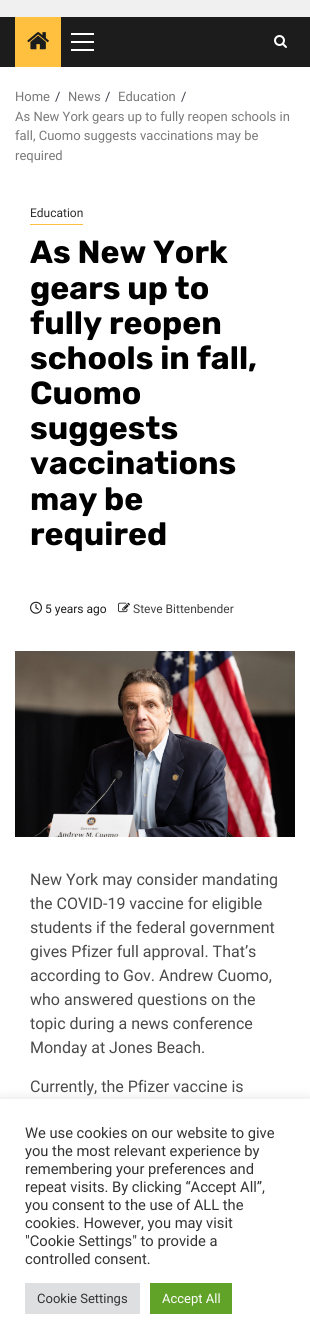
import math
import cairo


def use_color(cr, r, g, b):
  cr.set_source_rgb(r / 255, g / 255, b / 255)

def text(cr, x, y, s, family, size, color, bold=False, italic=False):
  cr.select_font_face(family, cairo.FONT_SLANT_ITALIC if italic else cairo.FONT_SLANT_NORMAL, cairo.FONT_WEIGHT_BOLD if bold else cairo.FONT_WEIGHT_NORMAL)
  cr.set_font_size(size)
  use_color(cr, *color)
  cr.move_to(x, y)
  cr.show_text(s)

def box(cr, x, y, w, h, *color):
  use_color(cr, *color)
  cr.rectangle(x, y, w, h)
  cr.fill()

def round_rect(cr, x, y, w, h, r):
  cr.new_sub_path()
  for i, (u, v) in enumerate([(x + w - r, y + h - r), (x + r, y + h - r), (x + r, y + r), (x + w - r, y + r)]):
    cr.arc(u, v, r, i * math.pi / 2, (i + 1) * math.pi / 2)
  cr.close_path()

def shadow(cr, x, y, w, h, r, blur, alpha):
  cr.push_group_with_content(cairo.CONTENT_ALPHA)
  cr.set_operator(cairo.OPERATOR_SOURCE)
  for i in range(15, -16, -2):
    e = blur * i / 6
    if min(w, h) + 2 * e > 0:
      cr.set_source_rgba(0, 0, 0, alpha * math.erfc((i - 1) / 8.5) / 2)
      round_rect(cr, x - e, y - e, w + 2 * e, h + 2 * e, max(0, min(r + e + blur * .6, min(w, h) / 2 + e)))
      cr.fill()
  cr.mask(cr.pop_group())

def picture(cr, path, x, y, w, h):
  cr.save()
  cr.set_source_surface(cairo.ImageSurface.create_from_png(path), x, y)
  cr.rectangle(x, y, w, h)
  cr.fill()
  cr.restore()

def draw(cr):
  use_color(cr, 255, 255, 255)
  cr.paint()
  box(cr, 0, 0, 310, 17, 240, 240, 240)
  box(cr, 0, 17, 310, 50, 28, 28, 28)
  box(cr, 15, 17, 46, 50, 255, 191, 63)
  picture(cr, "img_01.png", 27, 32, 22, 18)
  box(cr, 71, 41, 23, 2, 255, 255, 255)
  box(cr, 71, 33, 23, 2, 255, 255, 255)
  box(cr, 71, 49, 23, 2, 255, 255, 255)
  picture(cr, "img_02.png", 274, 35, 13, 13)
  box(cr, 30, 224, 53, 1, 255, 191, 63)
  picture(cr, "img_03.png", 30, 601, 12, 13)
  picture(cr, "img_04.png", 118, 602, 12, 11)
  picture(cr, "img_05.png", 15, 651, 280, 186)
  use_color(cr, 172, 171, 171)
  shadow(cr, 0, 1098, 310, 245, 0, 5, 0.3)
  box(cr, 0, 1099, 310, 245, 255, 255, 255)
  box(cr, 25, 1283, 115, 31, 222, 223, 224)
  box(cr, 150, 1283, 82, 31, 97, 162, 41)
  text(cr, 15, 101, "Home", "Roboto", 13, (121, 121, 121))
  text(cr, 55, 101, "/", "Roboto", 13, (57, 62, 70))
  text(cr, 68, 101, "News", "Roboto", 13, (121, 121, 121))
  text(cr, 105, 101, "/", "Roboto", 13, (57, 62, 70))
  text(cr, 118, 101, "Education", "Roboto", 13, (121, 121, 121))
  text(cr, 181, 101, "/", "Roboto", 13, (57, 62, 70))
  text(cr, 15, 121, "As New York gears up to fully reopen schools in", "Roboto", 13, (121, 121, 121))
  text(cr, 15, 140, "fall, Cuomo suggests vaccinations may be", "Roboto", 13, (121, 121, 121))
  text(cr, 15, 160, "required", "Roboto", 13, (121, 121, 121))
  text(cr, 30, 217, "Education", "Roboto", 12, (43, 43, 43))
  text(cr, 30, 263, "As New York", "Rubik", 32, (0, 0, 0), bold=True)
  text(cr, 30, 299, "gears up to", "Rubik", 32, (0, 0, 0), bold=True)
  text(cr, 30, 334, "fully reopen", "Rubik", 32, (0, 0, 0), bold=True)
  text(cr, 30, 369, "schools in fall,", "Rubik", 32, (0, 0, 0), bold=True)
  text(cr, 30, 404, "Cuomo", "Rubik", 32, (0, 0, 0), bold=True)
  text(cr, 30, 439, "suggests", "Rubik", 32, (0, 0, 0), bold=True)
  text(cr, 30, 474, "vaccinations", "Rubik", 32, (0, 0, 0), bold=True)
  text(cr, 30, 510, "may be", "Rubik", 32, (0, 0, 0), bold=True)
  text(cr, 30, 545, "required", "Rubik", 32, (0, 0, 0), bold=True)
  text(cr, 45, 613, "5 years ago", "Roboto", 12, (28, 28, 28))
  text(cr, 133, 613, "Steve Bittenbender", "Roboto", 12, (64, 64, 64))
  text(cr, 30, 885, "New York may consider mandating", "Roboto", 16, (74, 74, 74))
  text(cr, 30, 909, "the COVID-19 vaccine for eligible", "Roboto", 16, (74, 74, 74))
  text(cr, 30, 933, "students if the federal government", "Roboto", 16, (74, 74, 74))
  text(cr, 30, 957, "gives Pfizer full approval. That’s", "Roboto", 16, (74, 74, 74))
  text(cr, 30, 981, "according to Gov. Andrew Cuomo,", "Roboto", 16, (74, 74, 74))
  text(cr, 30, 1005, "who answered questions on the", "Roboto", 16, (74, 74, 74))
  text(cr, 30, 1029, "topic during a news conference", "Roboto", 16, (74, 74, 74))
  text(cr, 30, 1053, "Monday at Jones Beach.", "Roboto", 16, (74, 74, 74))
  text(cr, 30, 1092, "Currently, the Pfizer vaccine is", "Roboto", 16, (74, 74, 74))
  text(cr, 25, 1138, "We use cookies on our website to give", "Roboto", 14.7, (51, 51, 51))
  text(cr, 25, 1156, "you the most relevant experience by", "Roboto", 14.7, (51, 51, 51))
  text(cr, 25, 1174, "remembering your preferences and", "Roboto", 14.7, (51, 51, 51))
  text(cr, 25, 1192, "repeat visits. By clicking “Accept All”,", "Roboto", 14.7, (51, 51, 51))
  text(cr, 25, 1210, "you consent to the use of ALL the", "Roboto", 14.7, (51, 51, 51))
  text(cr, 25, 1228, "cookies. However, you may visit", "Roboto", 14.7, (51, 51, 51))
  text(cr, 25, 1246, "\"Cookie Settings\" to provide a", "Roboto", 14.7, (51, 51, 51))
  text(cr, 25, 1264, "controlled consent.", "Roboto", 14.7, (51, 51, 51))
  text(cr, 37, 1303, "Cookie Settings", "Roboto", 13, (51, 51, 51))
  text(cr, 162, 1303, "Accept All", "Roboto", 13, (255, 255, 255))


surface = cairo.ImageSurface(cairo.FORMAT_RGB24, 310, 1344)
cr = cairo.Context(surface)
options = cairo.FontOptions()
options.set_hint_metrics(cairo.HINT_METRICS_OFF)
options.set_hint_style(cairo.HINT_STYLE_NONE)
cr.set_font_options(options)
cr.set_miter_limit(4)
draw(cr)
surface.write_to_png("out.png")
